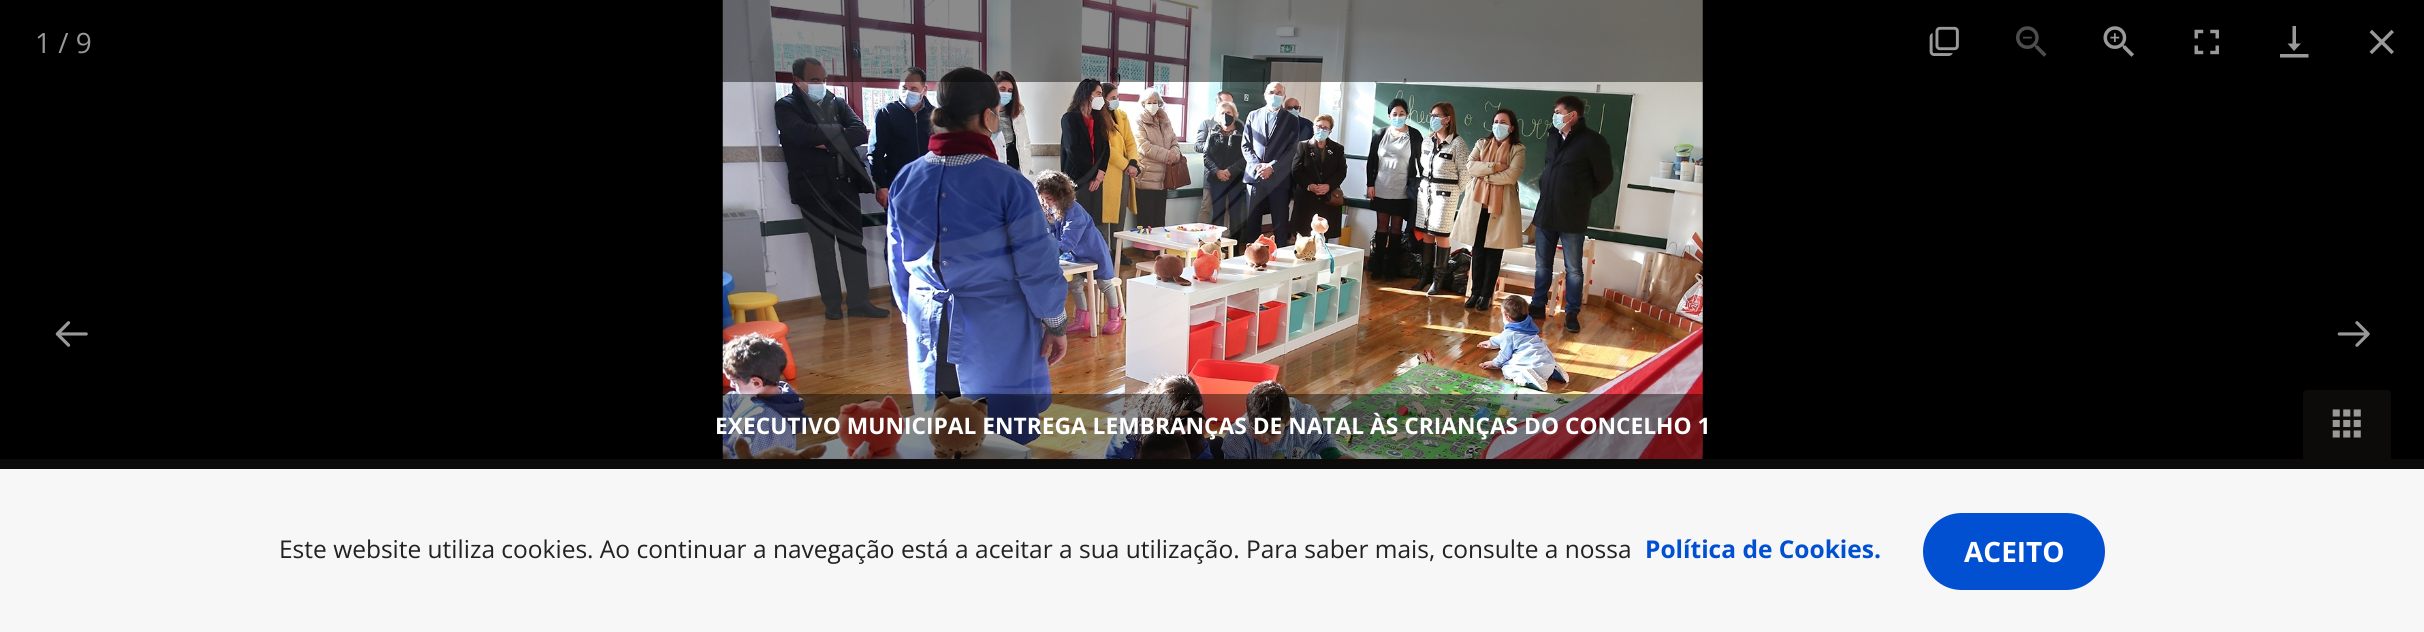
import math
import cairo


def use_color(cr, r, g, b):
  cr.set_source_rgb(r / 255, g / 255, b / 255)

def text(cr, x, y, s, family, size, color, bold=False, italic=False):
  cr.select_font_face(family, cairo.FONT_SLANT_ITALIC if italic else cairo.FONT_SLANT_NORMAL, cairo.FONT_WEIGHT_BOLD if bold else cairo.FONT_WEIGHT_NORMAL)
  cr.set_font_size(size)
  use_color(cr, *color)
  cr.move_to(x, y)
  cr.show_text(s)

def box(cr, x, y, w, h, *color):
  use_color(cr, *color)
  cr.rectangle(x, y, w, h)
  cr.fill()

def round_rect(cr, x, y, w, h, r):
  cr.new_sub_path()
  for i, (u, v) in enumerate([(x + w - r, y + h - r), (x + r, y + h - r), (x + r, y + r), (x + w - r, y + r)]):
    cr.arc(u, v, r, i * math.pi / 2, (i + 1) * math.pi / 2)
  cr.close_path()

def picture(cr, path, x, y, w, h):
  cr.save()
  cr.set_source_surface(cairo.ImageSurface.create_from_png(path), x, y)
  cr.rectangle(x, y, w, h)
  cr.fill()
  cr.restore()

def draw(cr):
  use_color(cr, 0, 0, 0)
  cr.paint()
  picture(cr, "img_06.png", 722, 0, 981, 459)
  cr.set_source_rgba(0, 0, 0, 0.45)
  cr.rectangle(722, 0, 981, 82)
  cr.fill()
  picture(cr, "img_01.png", 1929, 26, 30, 30)
  picture(cr, "img_02.png", 2016, 26, 31, 31)
  picture(cr, "img_03.png", 2103, 26, 31, 31)
  picture(cr, "img_04.png", 2194, 29, 25, 26)
  use_color(cr, 153, 153, 153)
  cr.new_path()
  cr.move_to(2280, 54)
  cr.line_to(2308.5, 54)
  cr.line_to(2308.5, 57.5)
  cr.line_to(2280, 57.5)
  cr.close_path()
  cr.move_to(2301, 43.5)
  cr.line_to(2294, 51)
  cr.line_to(2287.5, 43.5)
  cr.line_to(2292.5, 43.5)
  cr.line_to(2292.5, 26)
  cr.line_to(2296, 26)
  cr.line_to(2296, 43.5)
  cr.close_path()
  cr.fill()
  picture(cr, "img_05.png", 2369, 29, 25, 26)
  picture(cr, "img_07.png", 55, 321, 33, 26)
  picture(cr, "img_08.png", 2337, 321, 33, 26)
  box(cr, 0, 459, 2424, 10, 13, 10, 10)
  cr.new_path()
  cr.move_to(2307, 390)
  cr.line_to(2387, 390)
  cr.curve_to(2389, 390, 2391, 392, 2391, 394)
  cr.line_to(2391, 459)
  cr.line_to(2303, 459)
  cr.line_to(2303, 394)
  cr.curve_to(2303, 392, 2305, 390, 2307, 390)
  cr.close_path()
  cr.fill()
  picture(cr, "img_09.png", 2332, 409, 29, 29)
  cr.set_source_rgba(0, 0, 0, 0.45)
  cr.rectangle(722, 394, 981, 65)
  cr.fill()
  box(cr, 0, 469, 2424, 163, 247, 247, 247)
  use_color(cr, 2, 80, 210)
  round_rect(cr, 1924, 514, 180, 75, 37.5)
  cr.fill_preserve()
  cr.stroke()
  text(cr, 35, 53, "1 / 9", "Open Sans", 28, (153, 153, 153))
  text(cr, 715, 434, "EXECUTIVO MUNICIPAL ENTREGA LEMBRANÇAS DE NATAL ÀS CRIANÇAS DO CONCELHO 1", "Open Sans", 22.75, (255, 255, 255), bold=True)
  text(cr, 279, 558, "Este website utiliza cookies. Ao continuar a navegação está a aceitar a sua utilização. Para saber mais, consulte a nossa", "Open Sans", 24.5, (34, 34, 34))
  text(cr, 1645, 558, "Política de Cookies.", "Open Sans", 24.5, (2, 80, 210), bold=True)
  text(cr, 1964, 562, "ACEITO", "Open Sans", 28, (255, 255, 255), bold=True)


surface = cairo.ImageSurface(cairo.FORMAT_RGB24, 2424, 632)
cr = cairo.Context(surface)
options = cairo.FontOptions()
options.set_hint_metrics(cairo.HINT_METRICS_OFF)
options.set_hint_style(cairo.HINT_STYLE_NONE)
cr.set_font_options(options)
cr.set_miter_limit(4)
draw(cr)
surface.write_to_png("out.png")
